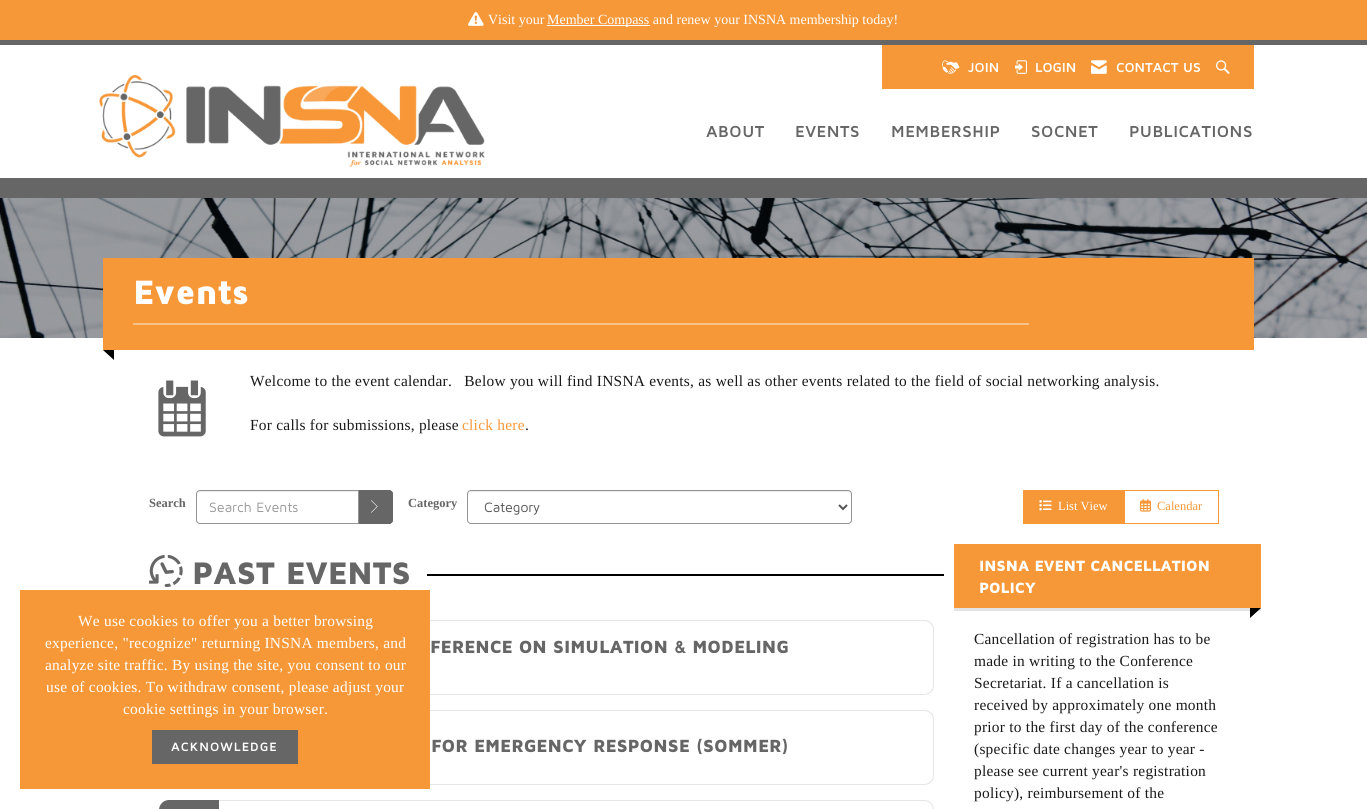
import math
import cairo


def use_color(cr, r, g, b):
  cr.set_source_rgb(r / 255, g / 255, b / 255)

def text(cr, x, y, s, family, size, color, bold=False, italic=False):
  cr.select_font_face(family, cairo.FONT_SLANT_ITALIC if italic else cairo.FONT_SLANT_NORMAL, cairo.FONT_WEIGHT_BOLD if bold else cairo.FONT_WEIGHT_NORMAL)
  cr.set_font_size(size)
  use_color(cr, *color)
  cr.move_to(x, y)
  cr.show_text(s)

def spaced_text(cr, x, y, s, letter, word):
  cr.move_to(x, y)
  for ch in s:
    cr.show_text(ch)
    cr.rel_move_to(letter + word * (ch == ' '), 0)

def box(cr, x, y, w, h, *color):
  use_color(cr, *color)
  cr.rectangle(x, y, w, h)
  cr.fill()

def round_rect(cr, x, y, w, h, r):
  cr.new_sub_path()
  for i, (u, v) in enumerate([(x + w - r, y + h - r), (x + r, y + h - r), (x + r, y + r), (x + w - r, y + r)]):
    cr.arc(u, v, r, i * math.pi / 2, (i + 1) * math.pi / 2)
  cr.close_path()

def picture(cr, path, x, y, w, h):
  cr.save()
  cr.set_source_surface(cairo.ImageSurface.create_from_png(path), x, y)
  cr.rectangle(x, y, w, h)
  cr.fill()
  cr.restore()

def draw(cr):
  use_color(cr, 255, 255, 255)
  cr.paint()
  box(cr, 0, 0, 1367, 40, 247, 152, 56)
  picture(cr, "img_01.png", 468, 11, 16, 15)
  box(cr, 547, 25, 103, 1, 255, 255, 255)
  box(cr, 0, 40, 1367, 5, 102, 102, 103)
  box(cr, 882, 45, 372, 44, 247, 152, 56)
  picture(cr, "img_02.png", 942, 60, 18, 14)
  picture(cr, "img_03.png", 1015, 60, 12, 14)
  picture(cr, "img_04.png", 1091, 60, 16, 14)
  picture(cr, "img_05.png", 1216, 60, 14, 14)
  picture(cr, "img_06.png", 99, 75, 386, 92)
  box(cr, 0, 178, 1367, 20, 102, 102, 103)
  picture(cr, "img_07.png", 0, 198, 1367, 140)
  box(cr, 103, 258, 1151, 92, 247, 152, 56)
  box(cr, 133, 323, 896, 2, 247, 193, 136)
  use_color(cr, 0, 0, 0)
  cr.new_path()
  cr.move_to(103, 350)
  cr.line_to(114, 350)
  cr.line_to(114, 360)
  cr.close_path()
  cr.fill()
  picture(cr, "img_08.png", 158, 380, 48, 57)
  use_color(cr, 236, 236, 236)
  cr.new_path()
  cr.move_to(200, 492)
  cr.line_to(358, 492)
  cr.line_to(358, 491)
  cr.line_to(200, 491)
  cr.curve_to(198, 491, 197, 493, 197, 495)
  cr.curve_to(197, 493, 198, 492, 200, 492)
  cr.close_path()
  cr.fill()
  cr.new_path()
  cr.move_to(200, 490.5)
  cr.line_to(358.5, 490.5)
  cr.line_to(358.5, 523.5)
  cr.line_to(200, 523.5)
  cr.curve_to(198, 523.5, 196.5, 522, 196.5, 520)
  cr.line_to(196.5, 494)
  cr.curve_to(196.5, 492, 198, 490.5, 200, 490.5)
  cr.close_path()
  use_color(cr, 148, 148, 148)
  cr.set_line_width(1)
  cr.stroke()
  use_color(cr, 102, 102, 103)
  cr.new_path()
  cr.move_to(359, 490)
  cr.line_to(389, 490)
  cr.curve_to(391, 490, 393, 492, 393, 494)
  cr.line_to(393, 520)
  cr.curve_to(393, 522, 391, 524, 389, 524)
  cr.line_to(359, 524)
  cr.close_path()
  cr.fill()
  cr.set_fill_rule(cairo.FILL_RULE_EVEN_ODD)
  cr.new_path()
  cr.move_to(359, 490)
  cr.line_to(389, 490)
  cr.curve_to(391, 490, 393, 492, 393, 494)
  cr.line_to(393, 520)
  cr.curve_to(393, 522, 391, 524, 389, 524)
  cr.line_to(359, 524)
  cr.close_path()
  cr.move_to(359, 492)
  cr.line_to(389, 492)
  cr.curve_to(390, 492, 391, 493, 391, 494)
  cr.line_to(391, 520)
  cr.curve_to(391, 521, 390, 522, 389, 522)
  cr.line_to(359, 522)
  cr.close_path()
  cr.fill()
  picture(cr, "img_09.png", 371, 500, 7, 13)
  use_color(cr, 236, 236, 236)
  cr.set_fill_rule(cairo.FILL_RULE_WINDING)
  cr.new_path()
  cr.move_to(471, 492)
  cr.line_to(848, 492)
  cr.curve_to(850, 492, 851, 493, 851, 495)
  cr.curve_to(851, 493, 850, 491, 848, 491)
  cr.line_to(471, 491)
  cr.line_to(469, 492)
  cr.line_to(468, 495)
  cr.curve_to(468, 493, 469, 492, 471, 492)
  cr.close_path()
  cr.fill()
  round_rect(cr, 467.5, 490.5, 384, 33, 3.5)
  use_color(cr, 148, 148, 148)
  cr.stroke()
  cr.new_path()
  cr.move_to(839, 505)
  cr.line_to(843, 509)
  cr.line_to(847, 505)
  use_color(cr, 85, 85, 85)
  cr.set_line_width(2)
  cr.stroke()
  box(cr, 1023, 490, 101, 34, 247, 152, 56)
  picture(cr, "img_10.png", 1039, 500, 13, 11)
  cr.rectangle(1124.5, 490.5, 94, 33)
  cr.set_line_width(1)
  cr.stroke()
  picture(cr, "img_11.png", 1140, 499, 12, 13)
  picture(cr, "img_12.png", 149, 554, 34, 33)
  box(cr, 427, 574, 517, 2, 0, 0, 0)
  use_color(cr, 230, 230, 230)
  cr.set_fill_rule(cairo.FILL_RULE_EVEN_ODD)
  cr.new_path()
  cr.move_to(219, 620)
  cr.line_to(924, 620)
  cr.curve_to(930, 620, 934, 624, 934, 630)
  cr.line_to(934, 685)
  cr.curve_to(934, 691, 930, 695, 924, 695)
  cr.line_to(219, 695)
  cr.close_path()
  cr.move_to(219, 621)
  cr.line_to(924, 621)
  cr.curve_to(929, 621, 933, 625, 933, 630)
  cr.line_to(933, 685)
  cr.curve_to(933, 690, 929, 694, 924, 694)
  cr.line_to(219, 694)
  cr.close_path()
  cr.fill()
  cr.new_path()
  cr.move_to(219, 710)
  cr.line_to(924, 710)
  cr.curve_to(930, 710, 934, 714, 934, 720)
  cr.line_to(934, 775)
  cr.curve_to(934, 781, 930, 785, 924, 785)
  cr.line_to(219, 785)
  cr.close_path()
  cr.move_to(219, 711)
  cr.line_to(924, 711)
  cr.curve_to(929, 711, 933, 715, 933, 720)
  cr.line_to(933, 775)
  cr.curve_to(933, 780, 929, 784, 924, 784)
  cr.line_to(219, 784)
  cr.close_path()
  cr.fill()
  use_color(cr, 102, 102, 103)
  cr.new_path()
  cr.move_to(169, 800)
  cr.line_to(219, 800)
  cr.line_to(219, 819)
  cr.line_to(169, 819)
  cr.curve_to(163.5, 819, 159, 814.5, 159, 809)
  cr.line_to(159, 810)
  cr.curve_to(159, 804.5, 163.5, 800, 169, 800)
  cr.close_path()
  cr.fill()
  use_color(cr, 230, 230, 230)
  cr.new_path()
  cr.move_to(219, 800)
  cr.line_to(924, 800)
  cr.curve_to(930, 800, 934, 804, 934, 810)
  cr.line_to(934, 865)
  cr.curve_to(934, 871, 930, 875, 924, 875)
  cr.line_to(219, 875)
  cr.close_path()
  cr.move_to(219, 801)
  cr.line_to(924, 801)
  cr.curve_to(929, 801, 933, 805, 933, 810)
  cr.line_to(933, 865)
  cr.curve_to(933, 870, 929, 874, 924, 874)
  cr.line_to(219, 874)
  cr.close_path()
  cr.fill()
  box(cr, 954, 608, 307, 3, 227, 227, 227)
  box(cr, 954, 544, 307, 64, 247, 152, 56)
  use_color(cr, 0, 0, 0)
  cr.set_fill_rule(cairo.FILL_RULE_WINDING)
  cr.new_path()
  cr.move_to(1250, 608)
  cr.line_to(1261, 608)
  cr.line_to(1250, 618)
  cr.close_path()
  cr.fill()
  box(cr, 20, 590, 410, 199, 247, 152, 56)
  box(cr, 152, 730, 146, 34, 102, 102, 103)
  text(cr, 488, 24, "Visit your", "Liberation Serif", 14, (255, 255, 255))
  text(cr, 547, 24, "Member Compass and renew your INSNA membership today!", "Liberation Serif", 14, (255, 255, 255))
  text(cr, 968, 72, "JOIN", "Maven Pro", 13.5, (255, 255, 255), bold=True)
  text(cr, 1035, 72, "LOGIN", "Maven Pro", 13.5, (255, 255, 255), bold=True)
  text(cr, 1116, 72, "CONTACT US", "Maven Pro", 13.5, (255, 255, 255), bold=True)
  cr.set_font_size(16.5)
  use_color(cr, 102, 102, 103)
  spaced_text(cr, 706, 137, "ABOUT", 0.5, 0)
  spaced_text(cr, 795, 137, "EVENTS", 0.5, 0)
  spaced_text(cr, 891, 137, "MEMBERSHIP", 0.5, 0)
  spaced_text(cr, 1031, 137, "SOCNET", 0.5, 0)
  spaced_text(cr, 1129, 137, "PUBLICATIONS", 0.5, 0)
  text(cr, 133, 304, "Events", "Maven Pro Black", 35, (255, 255, 255))
  cr.select_font_face("Liberation Serif")
  cr.set_font_size(15.4)
  use_color(cr, 25, 25, 25)
  spaced_text(cr, 250, 386, "Welcome to the event calendar.   Below you will find INSNA events, as well as other events related to the field of social networking analysis.", 0.25, 0)
  spaced_text(cr, 250, 430, "For calls for submissions, please", 0.25, 0)
  use_color(cr, 247, 152, 56)
  spaced_text(cr, 462, 430, "click here", 0.25, 0)
  use_color(cr, 25, 25, 25)
  spaced_text(cr, 525, 430, ".", 0.25, 0)
  text(cr, 149, 507, "Search", "Liberation Serif", 12.5, (102, 102, 103), bold=True)
  text(cr, 209, 512, "Search Events", "Maven Pro", 14, (153, 153, 153))
  text(cr, 408, 507, "Category", "Liberation Serif", 12.5, (102, 102, 103), bold=True)
  text(cr, 484, 512, "Category", "Maven Pro", 14, (85, 85, 85))
  text(cr, 1058, 510, "List View", "Liberation Serif", 12.5, (255, 255, 255))
  text(cr, 1157, 510, "Calendar", "Liberation Serif", 12.5, (247, 152, 56))
  text(cr, 192, 584, "PAST EVENTS", "Maven Pro Black", 32.25, (102, 102, 103))
  text(cr, 430, 653, "FERENCE ON SIMULATION & MODELING", "Maven Pro Black", 18.25, (102, 102, 103))
  text(cr, 431, 752, "FOR EMERGENCY RESPONSE (SOMMER)", "Maven Pro Black", 18.25, (102, 102, 103))
  text(cr, 979, 571, "INSNA EVENT CANCELLATION", "Maven Pro Black", 15.4, (255, 255, 255))
  text(cr, 979, 593, "POLICY", "Maven Pro Black", 15.4, (255, 255, 255))
  cr.select_font_face("Liberation Serif")
  use_color(cr, 25, 25, 25)
  spaced_text(cr, 974, 644, "Cancellation of registration has to be", 0.25, 0)
  spaced_text(cr, 974, 666, "made in writing to the Conference", 0.25, 0)
  spaced_text(cr, 974, 688, "Secretariat. If a cancellation is", 0.25, 0)
  spaced_text(cr, 974, 710, "received by approximately one month", 0.25, 0)
  spaced_text(cr, 974, 732, "prior to the first day of the conference", 0.25, 0)
  spaced_text(cr, 974, 754, "(specific date changes year to year -", 0.25, 0)
  spaced_text(cr, 974, 776, "please see current year's registration", 0.25, 0)
  spaced_text(cr, 974, 798, "policy), reimbursement of the", 0.25, 0)
  use_color(cr, 255, 255, 255)
  spaced_text(cr, 78, 626, "We use cookies to offer you a better browsing", 0.25, 0)
  spaced_text(cr, 45, 648, "experience, \"recognize\" returning INSNA members, and", 0.25, 0)
  spaced_text(cr, 45, 670, "analyze site traffic. By using the site, you consent to our", 0.25, 0)
  spaced_text(cr, 46, 692, "use of cookies. To withdraw consent, please adjust your", 0.25, 0)
  spaced_text(cr, 123, 714, "cookie settings in your browser.", 0.25, 0)
  cr.select_font_face("Maven Pro", cairo.FONT_SLANT_NORMAL, cairo.FONT_WEIGHT_BOLD)
  cr.set_font_size(12.5)
  spaced_text(cr, 171, 751, "ACKNOWLEDGE", 1, 0)


surface = cairo.ImageSurface(cairo.FORMAT_RGB24, 1367, 809)
cr = cairo.Context(surface)
options = cairo.FontOptions()
options.set_hint_metrics(cairo.HINT_METRICS_OFF)
options.set_hint_style(cairo.HINT_STYLE_NONE)
cr.set_font_options(options)
cr.set_miter_limit(4)
draw(cr)
surface.write_to_png("out.png")
